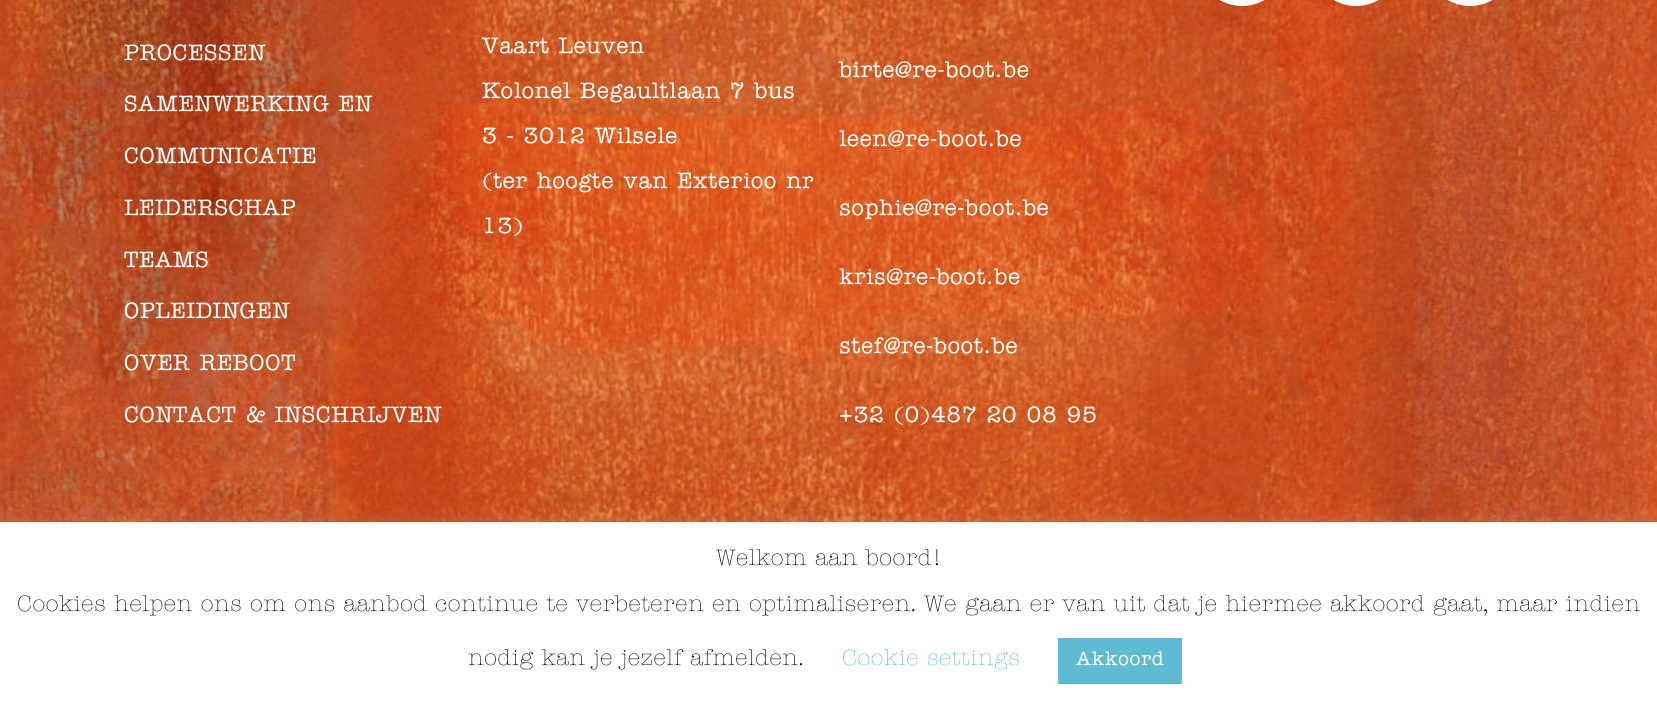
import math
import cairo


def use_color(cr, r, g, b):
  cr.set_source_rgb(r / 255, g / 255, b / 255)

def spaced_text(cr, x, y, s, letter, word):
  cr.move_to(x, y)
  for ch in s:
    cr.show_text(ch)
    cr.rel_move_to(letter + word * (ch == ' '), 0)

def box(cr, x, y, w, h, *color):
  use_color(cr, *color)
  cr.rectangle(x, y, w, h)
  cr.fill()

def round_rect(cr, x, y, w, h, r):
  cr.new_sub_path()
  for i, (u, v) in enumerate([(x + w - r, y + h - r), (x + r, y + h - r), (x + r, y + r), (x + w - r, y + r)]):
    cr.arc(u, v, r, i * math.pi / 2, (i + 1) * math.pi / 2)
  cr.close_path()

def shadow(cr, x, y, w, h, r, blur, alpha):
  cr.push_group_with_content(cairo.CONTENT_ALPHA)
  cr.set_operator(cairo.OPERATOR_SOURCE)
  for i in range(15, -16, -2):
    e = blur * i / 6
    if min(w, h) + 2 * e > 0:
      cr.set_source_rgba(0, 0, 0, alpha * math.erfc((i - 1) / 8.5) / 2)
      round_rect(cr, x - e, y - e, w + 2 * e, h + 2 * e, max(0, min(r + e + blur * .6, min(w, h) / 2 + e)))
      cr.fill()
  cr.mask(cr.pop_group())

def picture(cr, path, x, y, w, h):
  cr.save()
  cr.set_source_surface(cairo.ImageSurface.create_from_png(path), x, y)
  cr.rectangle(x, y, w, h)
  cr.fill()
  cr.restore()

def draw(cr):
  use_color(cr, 255, 255, 255)
  cr.paint()
  picture(cr, "img_01.png", 0, 0, 1657, 522)
  use_color(cr, 255, 255, 255)
  round_rect(cr, 1198.5, -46.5, 87, 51, 43.5)
  cr.fill_preserve()
  cr.set_line_width(3)
  cr.stroke()
  round_rect(cr, 1312.5, -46.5, 87, 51, 43.5)
  cr.fill_preserve()
  cr.stroke()
  round_rect(cr, 1426.5, -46.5, 87, 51, 43.5)
  cr.fill_preserve()
  cr.stroke()
  use_color(cr, 172, 171, 171)
  shadow(cr, 0, 521, 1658, 187, 0, 7.5, 0.3)
  box(cr, 0, 522, 1657, 187, 255, 255, 255)
  box(cr, 1058, 638, 124, 46, 93, 188, 210)
  cr.select_font_face("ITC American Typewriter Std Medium")
  cr.set_font_size(22.5)
  use_color(cr, 255, 255, 255)
  spaced_text(cr, 124, 60, "PROCESSEN", 0.6, 0)
  spaced_text(cr, 124, 111, "SAMENWERKING EN", 0.6, 0)
  spaced_text(cr, 124, 163, "COMMUNICATIE", 0.6, 0)
  spaced_text(cr, 124, 215, "LEIDERSCHAP", 0.6, 0)
  spaced_text(cr, 124, 267, "TEAMS", 0.6, 0)
  spaced_text(cr, 124, 318, "OPLEIDINGEN", 0.6, 0)
  spaced_text(cr, 124, 370, "OVER REBOOT", 0.6, 0)
  spaced_text(cr, 124, 422, "CONTACT & INSCHRIJVEN", 0.6, 0)
  spaced_text(cr, 482, 53, "Vaart Leuven", 0.6, 0)
  spaced_text(cr, 482, 98, "Kolonel Begaultlaan 7 bus", 0.6, 0)
  spaced_text(cr, 482, 143, "3 - 3012 Wilsele", 0.6, 0)
  spaced_text(cr, 482, 188, "(ter hoogte van Exterioo nr", 0.6, 0)
  spaced_text(cr, 482, 233, "13)", 0.6, 0)
  spaced_text(cr, 839, 77, "birte@re-boot.be", 0.6, 0)
  spaced_text(cr, 839, 146, "leen@re-boot.be", 0.6, 0)
  spaced_text(cr, 839, 215, "sophie@re-boot.be", 0.6, 0)
  spaced_text(cr, 839, 284, "kris@re-boot.be", 0.6, 0)
  spaced_text(cr, 839, 353, "stef@re-boot.be", 0.6, 0)
  spaced_text(cr, 839, 422, "+32 (0)487 20 08 95", 0.6, 0)
  cr.select_font_face("ITC American Typewriter Std Light")
  use_color(cr, 0, 0, 0)
  spaced_text(cr, 716, 565, "Welkom aan boord!", 0.6, 0)
  spaced_text(cr, 17, 611, "Cookies helpen ons om ons aanbod continue te verbeteren en optimaliseren. We gaan er van uit dat je hiermee akkoord gaat, maar indien", 0.6, 0)
  spaced_text(cr, 468, 665, "nodig kan je jezelf afmelden.", 0.6, 0)
  use_color(cr, 93, 188, 210)
  spaced_text(cr, 842, 665, "Cookie settings", 0.6, 0)
  cr.select_font_face("ITC American Typewriter Std Medium")
  cr.set_font_size(19.5)
  use_color(cr, 255, 255, 255)
  spaced_text(cr, 1076, 665, "Akkoord", 0.6, 0)


surface = cairo.ImageSurface(cairo.FORMAT_RGB24, 1657, 709)
cr = cairo.Context(surface)
options = cairo.FontOptions()
options.set_hint_metrics(cairo.HINT_METRICS_OFF)
options.set_hint_style(cairo.HINT_STYLE_NONE)
cr.set_font_options(options)
cr.set_miter_limit(4)
draw(cr)
surface.write_to_png("out.png")
